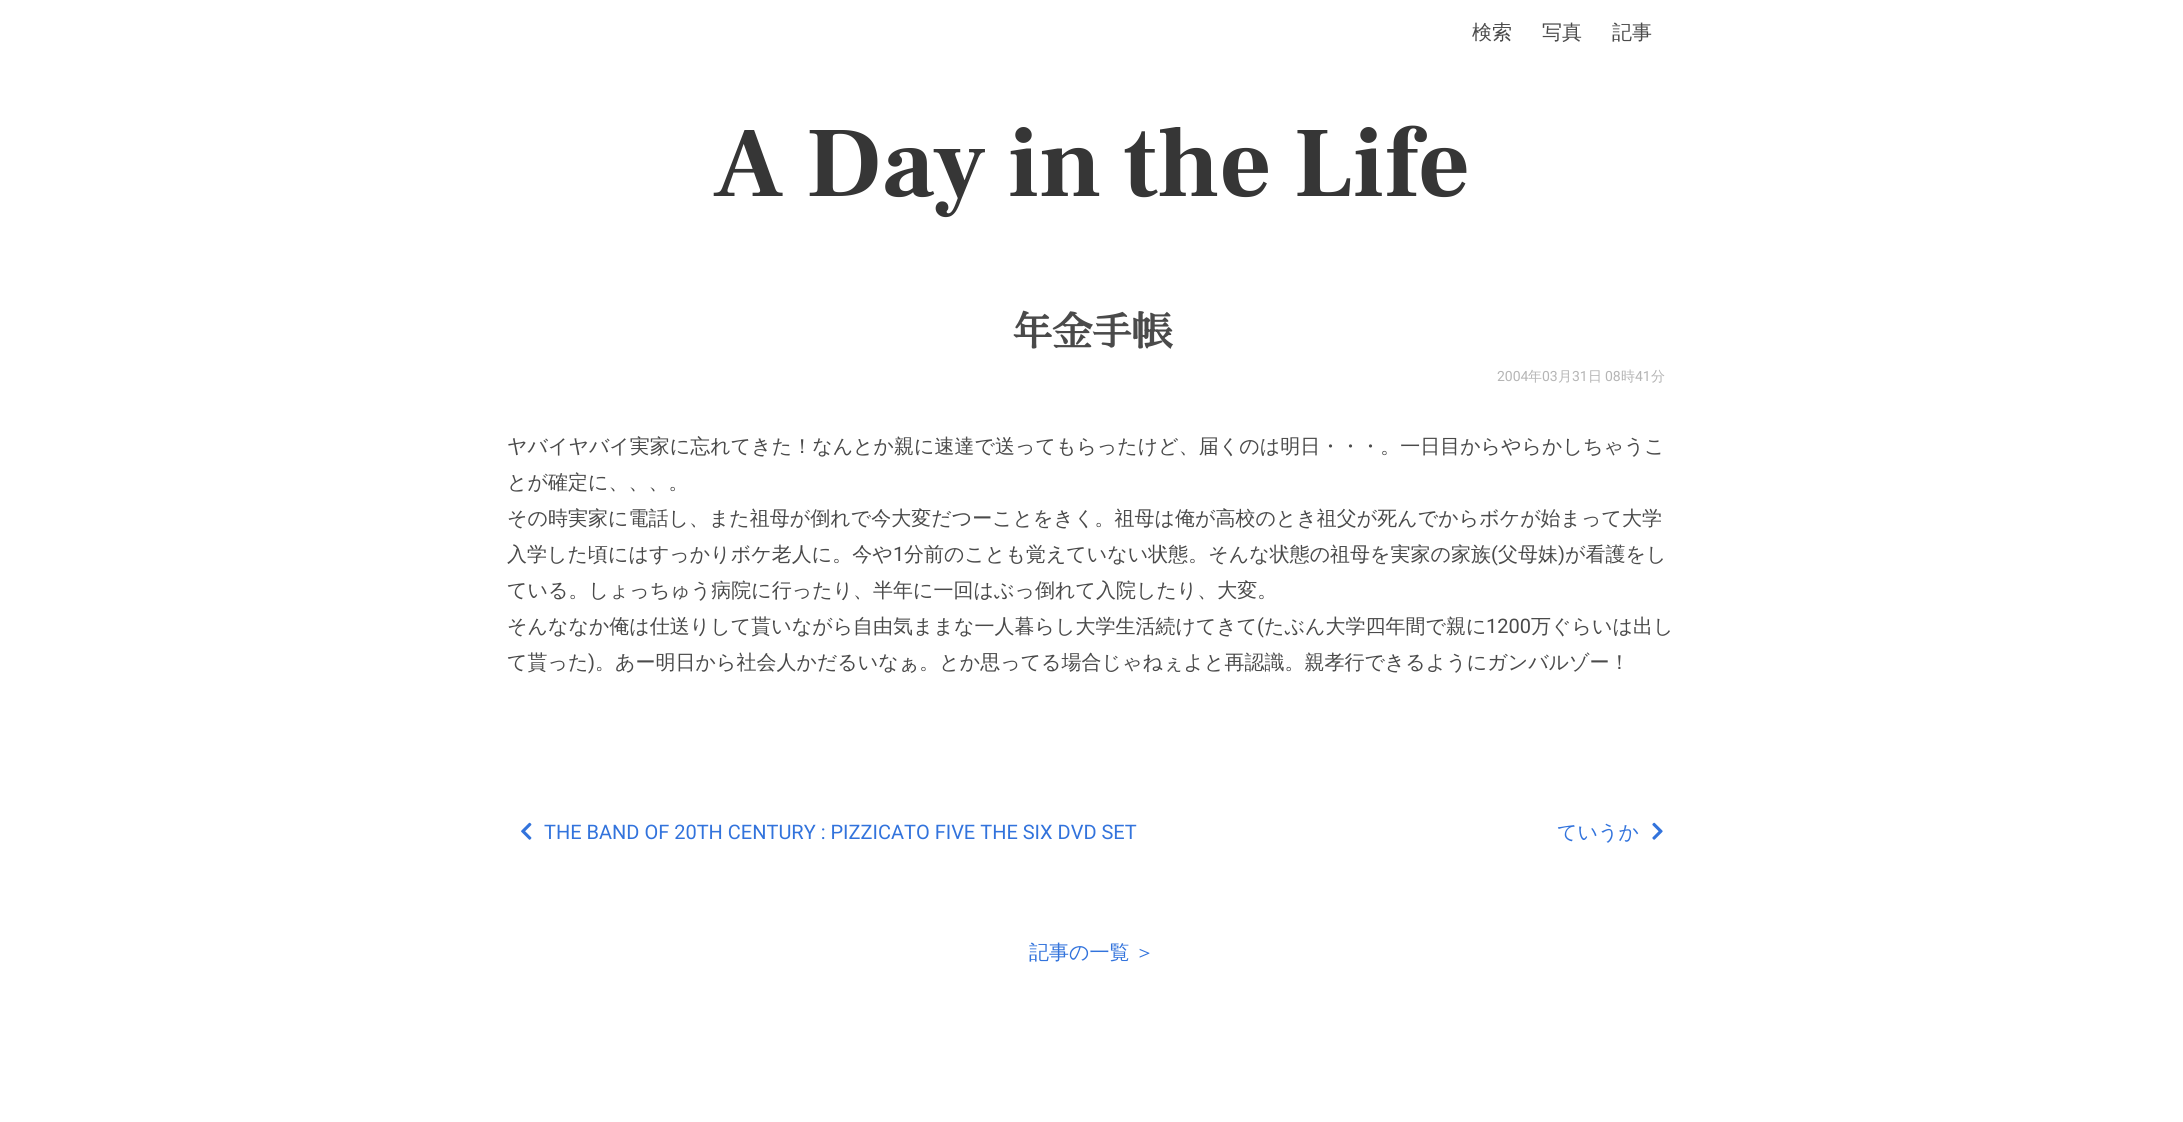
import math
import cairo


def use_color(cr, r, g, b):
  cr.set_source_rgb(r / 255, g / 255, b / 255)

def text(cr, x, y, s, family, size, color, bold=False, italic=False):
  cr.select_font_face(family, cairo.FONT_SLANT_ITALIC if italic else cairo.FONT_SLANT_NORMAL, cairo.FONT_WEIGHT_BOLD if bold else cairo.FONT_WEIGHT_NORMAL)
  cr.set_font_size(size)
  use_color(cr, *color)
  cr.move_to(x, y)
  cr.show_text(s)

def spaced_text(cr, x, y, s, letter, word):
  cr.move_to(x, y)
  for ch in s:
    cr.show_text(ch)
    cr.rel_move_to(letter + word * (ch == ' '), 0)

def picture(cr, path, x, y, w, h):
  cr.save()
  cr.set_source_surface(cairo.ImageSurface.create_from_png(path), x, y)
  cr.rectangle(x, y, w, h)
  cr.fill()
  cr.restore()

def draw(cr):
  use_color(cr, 255, 255, 255)
  cr.paint()
  picture(cr, "img_01.png", 521, 822, 11, 18)
  picture(cr, "img_02.png", 1652, 822, 11, 18)
  text(cr, 1472, 39, "検索", "WenQuanYi Zen Hei Medium", 20, (74, 74, 74))
  text(cr, 1542, 39, "写真", "WenQuanYi Zen Hei Medium", 20, (74, 74, 74))
  text(cr, 1612, 39, "記事", "WenQuanYi Zen Hei Medium", 20, (74, 74, 74))
  text(cr, 713, 196, "A Day in the Life", "Frank Ruhl Libre", 100, (54, 54, 54), bold=True)
  text(cr, 1012, 346, "年金手帳", "Sawarabi Mincho", 40, (74, 74, 74), bold=True)
  text(cr, 1497, 381, "2004", "Roboto", 14, (181, 181, 181))
  text(cr, 1528, 381, "年", "WenQuanYi Zen Hei Medium", 14, (181, 181, 181))
  text(cr, 1542, 381, "03", "Roboto", 14, (181, 181, 181))
  text(cr, 1558, 381, "月", "WenQuanYi Zen Hei Medium", 14, (181, 181, 181))
  text(cr, 1572, 381, "31", "Roboto", 14, (181, 181, 181))
  text(cr, 1588, 381, "日", "WenQuanYi Zen Hei Medium", 14, (181, 181, 181))
  text(cr, 1605, 381, "08", "Roboto", 14, (181, 181, 181))
  text(cr, 1621, 381, "時", "WenQuanYi Zen Hei Medium", 14, (181, 181, 181))
  text(cr, 1635, 381, "41", "Roboto", 14, (181, 181, 181))
  text(cr, 1651, 381, "分", "WenQuanYi Zen Hei Medium", 14, (181, 181, 181))
  text(cr, 507, 453, "ヤバイヤバイ実家に忘れてきた！なんとか親に速達で送ってもらったけど、届くのは明日・・・。一日目からやらかしちゃうこ", "WenQuanYi Zen Hei Medium", 20, (74, 74, 74))
  text(cr, 507, 489, "とが確定に、、、。", "WenQuanYi Zen Hei Medium", 20, (74, 74, 74))
  text(cr, 507, 525, "その時実家に電話し、また祖母が倒れで今大変だつーことをきく。祖母は俺が高校のとき祖父が死んでからボケが始まって大学", "WenQuanYi Zen Hei Medium", 20, (74, 74, 74))
  text(cr, 507, 561, "入学した頃にはすっかりボケ老人に。今や", "WenQuanYi Zen Hei Medium", 20, (74, 74, 74))
  text(cr, 893, 561, "1", "Roboto", 20, (74, 74, 74))
  text(cr, 904, 561, "分前のことも覚えていない状態。そんな状態の祖母を実家の家族", "WenQuanYi Zen Hei Medium", 20, (74, 74, 74))
  text(cr, 1491, 561, "(", "Roboto", 20, (74, 74, 74))
  text(cr, 1498, 561, "父母妹", "WenQuanYi Zen Hei Medium", 20, (74, 74, 74))
  text(cr, 1558, 561, ")", "Roboto", 20, (74, 74, 74))
  text(cr, 1565, 561, "が看護をし", "WenQuanYi Zen Hei Medium", 20, (74, 74, 74))
  text(cr, 507, 597, "ている。しょっちゅう病院に行ったり、半年に一回はぶっ倒れて入院したり、大変。", "WenQuanYi Zen Hei Medium", 20, (74, 74, 74))
  text(cr, 507, 633, "そんななか俺は仕送りして貰いながら自由気ままな一人暮らし大学生活続けてきて", "WenQuanYi Zen Hei Medium", 20, (74, 74, 74))
  text(cr, 1257, 633, "(", "Roboto", 20, (74, 74, 74))
  text(cr, 1264, 633, "たぶん大学四年間で親に", "WenQuanYi Zen Hei Medium", 20, (74, 74, 74))
  text(cr, 1486, 633, "1200", "Roboto", 20, (74, 74, 74))
  text(cr, 1531, 633, "万ぐらいは出し", "WenQuanYi Zen Hei Medium", 20, (74, 74, 74))
  text(cr, 507, 669, "て貰った", "WenQuanYi Zen Hei Medium", 20, (74, 74, 74))
  text(cr, 588, 669, ")", "Roboto", 20, (74, 74, 74))
  text(cr, 595, 669, "。あー明日から社会人かだるいなぁ。とか思ってる場合じゃねぇよと再認識。親孝行できるようにガンバルゾー！", "WenQuanYi Zen Hei Medium", 20, (74, 74, 74))
  text(cr, 544, 839, "THE BAND OF 20TH CENTURY : PIZZICATO FIVE THE SIX DVD SET", "Roboto", 20, (50, 115, 220))
  text(cr, 1557, 839, "ていうか", "WenQuanYi Zen Hei Medium", 20, (50, 115, 220))
  spaced_text(cr, 1029, 959, "記事の一覧 ＞", 0, -1)


surface = cairo.ImageSurface(cairo.FORMAT_RGB24, 2183, 1122)
cr = cairo.Context(surface)
options = cairo.FontOptions()
options.set_hint_metrics(cairo.HINT_METRICS_OFF)
options.set_hint_style(cairo.HINT_STYLE_NONE)
cr.set_font_options(options)
cr.set_miter_limit(4)
draw(cr)
surface.write_to_png("out.png")
